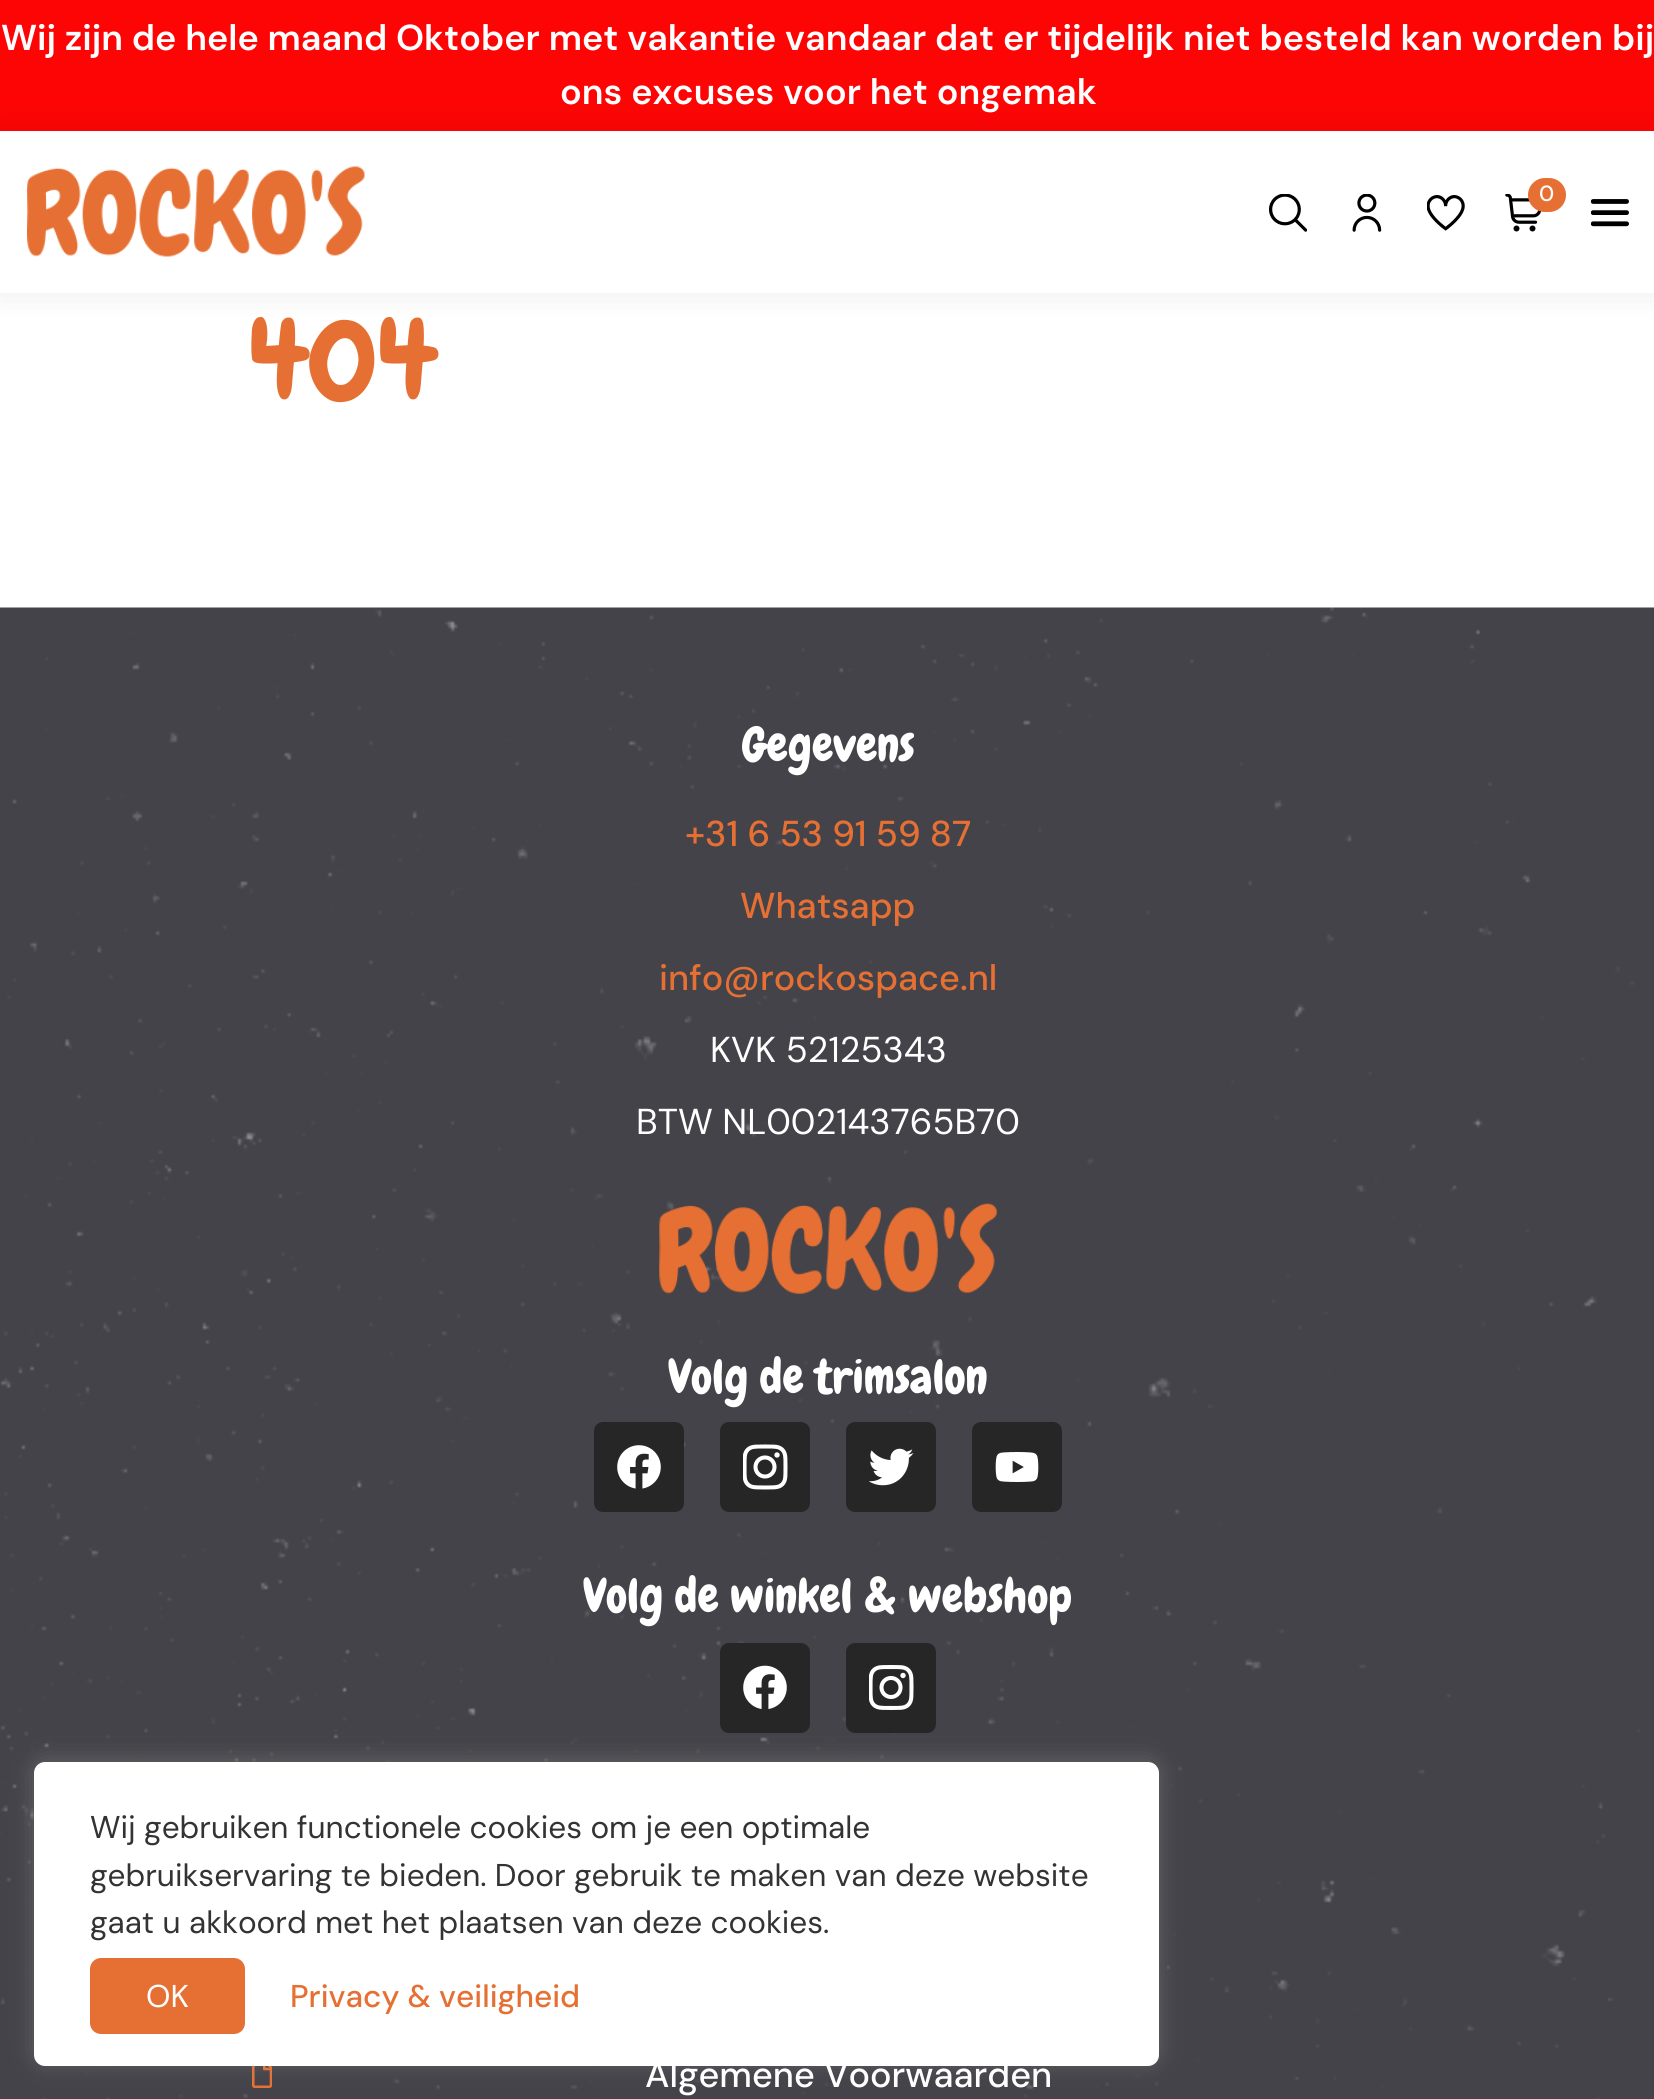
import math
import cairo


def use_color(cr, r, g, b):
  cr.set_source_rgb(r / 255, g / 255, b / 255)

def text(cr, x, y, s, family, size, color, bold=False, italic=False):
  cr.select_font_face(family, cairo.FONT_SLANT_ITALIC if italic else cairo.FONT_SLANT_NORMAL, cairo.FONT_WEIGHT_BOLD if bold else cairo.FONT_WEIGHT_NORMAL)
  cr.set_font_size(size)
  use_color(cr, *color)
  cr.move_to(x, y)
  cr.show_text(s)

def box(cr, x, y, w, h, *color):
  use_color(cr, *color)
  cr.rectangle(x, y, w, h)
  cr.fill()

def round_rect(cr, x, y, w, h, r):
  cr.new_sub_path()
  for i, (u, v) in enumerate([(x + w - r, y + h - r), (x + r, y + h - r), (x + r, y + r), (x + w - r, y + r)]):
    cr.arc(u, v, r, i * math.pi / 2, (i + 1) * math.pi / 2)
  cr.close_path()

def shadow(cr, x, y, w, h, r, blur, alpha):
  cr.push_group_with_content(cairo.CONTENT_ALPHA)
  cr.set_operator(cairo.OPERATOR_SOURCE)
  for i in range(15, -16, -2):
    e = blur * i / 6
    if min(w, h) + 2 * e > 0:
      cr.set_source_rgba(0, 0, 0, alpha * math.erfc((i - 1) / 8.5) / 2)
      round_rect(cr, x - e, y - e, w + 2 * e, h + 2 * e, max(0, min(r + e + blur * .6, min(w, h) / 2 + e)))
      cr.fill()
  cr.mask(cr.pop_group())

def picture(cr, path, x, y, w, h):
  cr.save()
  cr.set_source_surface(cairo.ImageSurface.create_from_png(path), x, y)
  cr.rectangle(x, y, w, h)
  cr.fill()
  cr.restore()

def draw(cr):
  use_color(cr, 255, 255, 255)
  cr.paint()
  box(cr, 0, 0, 1654, 131, 253, 5, 5)
  use_color(cr, 0, 0, 0)
  shadow(cr, -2, 128, 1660, 167, 0, 17, 0.07)
  box(cr, 0, 131, 1654, 162, 255, 255, 255)
  picture(cr, "img_01.png", 27, 166, 338, 91)
  picture(cr, "img_02.png", 1269, 194, 38, 38)
  picture(cr, "img_03.png", 1352, 194, 30, 38)
  picture(cr, "img_04.png", 1427, 195, 38, 36)
  picture(cr, "img_05.png", 1505, 194, 37, 38)
  use_color(cr, 230, 112, 51)
  round_rect(cr, 1528, 178, 38, 34, 17)
  cr.fill()
  picture(cr, "img_06.png", 1591, 199, 38, 28)
  picture(cr, "img_07.png", 0, 607, 1654, 1492)
  picture(cr, "img_08.png", 659, 1203, 338, 91)
  use_color(cr, 38, 38, 38)
  round_rect(cr, 594, 1422, 90, 90, 9)
  cr.fill()
  picture(cr, "img_09.png", 617, 1445, 44, 44)
  round_rect(cr, 720, 1422, 90, 90, 9)
  cr.fill()
  picture(cr, "img_10.png", 743, 1444, 45, 46)
  round_rect(cr, 846, 1422, 90, 90, 9)
  cr.fill()
  picture(cr, "img_11.png", 869, 1448, 45, 38)
  round_rect(cr, 972, 1422, 90, 90, 9)
  cr.fill()
  picture(cr, "img_12.png", 995, 1452, 44, 30)
  round_rect(cr, 720, 1643, 90, 90, 9)
  cr.fill()
  picture(cr, "img_13.png", 743, 1665, 44, 44)
  round_rect(cr, 846, 1643, 90, 90, 9)
  cr.fill()
  picture(cr, "img_14.png", 869, 1665, 45, 45)
  picture(cr, "img_15.png", 252, 2066, 20, 22)
  use_color(cr, 172, 171, 171)
  shadow(cr, 34, 1760, 1125, 303, 11, 11, 0.3)
  use_color(cr, 255, 255, 255)
  round_rect(cr, 34, 1762, 1125, 304, 11)
  cr.fill()
  use_color(cr, 230, 112, 51)
  round_rect(cr, 90, 1958, 155, 76, 11)
  cr.fill()
  text(cr, 1, 50, "Wij zijn de hele maand Oktober met vakantie vandaar dat er tijdelijk niet besteld kan worden bij", "DM Sans SemiBold", 36, (255, 255, 255))
  text(cr, 560, 104, "ons excuses voor het ongemak", "DM Sans SemiBold", 36, (255, 255, 255))
  text(cr, 1539, 201, "0", "DM Sans Medium", 22, (255, 255, 255))
  text(cr, 248, 398, "404", "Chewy", 112, (230, 112, 51))
  text(cr, 742, 761, "Gegevens", "Chewy", 47.25, (255, 255, 255))
  text(cr, 685, 846, "+31 6 53 91 59 87", "DM Sans Medium", 36, (230, 112, 51))
  text(cr, 740, 918, "Whatsapp", "DM Sans Medium", 36, (230, 112, 51))
  text(cr, 659, 990, "info@rockospace.nl", "DM Sans Medium", 36, (230, 112, 51))
  text(cr, 710, 1062, "KVK 52125343", "DM Sans", 36, (255, 255, 255))
  text(cr, 636, 1134, "BTW NL002143765B70", "DM Sans", 36, (255, 255, 255))
  text(cr, 668, 1393, "Volg de trimsalon", "Chewy", 47.25, (255, 255, 255))
  text(cr, 583, 1612, "Volg de winkel & webshop", "Chewy", 47.25, (255, 255, 255))
  text(cr, 645, 2087, "Algemene Voorwaarden", "DM Sans Medium", 36, (255, 255, 255))
  text(cr, 90, 1838, "Wij gebruiken functionele cookies om je een optimale", "DM Sans", 31.5, (51, 51, 51))
  text(cr, 90, 1886, "gebruikservaring te bieden. Door gebruik te maken van deze website", "DM Sans", 31.5, (51, 51, 51))
  text(cr, 90, 1933, "gaat u akkoord met het plaatsen van deze cookies.", "DM Sans", 31.5, (51, 51, 51))
  text(cr, 146, 2007, "OK", "DM Sans", 31.5, (255, 255, 255))
  text(cr, 290, 2007, "Privacy & veiligheid", "DM Sans Medium", 31.5, (230, 112, 51))


surface = cairo.ImageSurface(cairo.FORMAT_RGB24, 1654, 2099)
cr = cairo.Context(surface)
options = cairo.FontOptions()
options.set_hint_metrics(cairo.HINT_METRICS_OFF)
options.set_hint_style(cairo.HINT_STYLE_NONE)
cr.set_font_options(options)
cr.set_miter_limit(4)
draw(cr)
surface.write_to_png("out.png")
